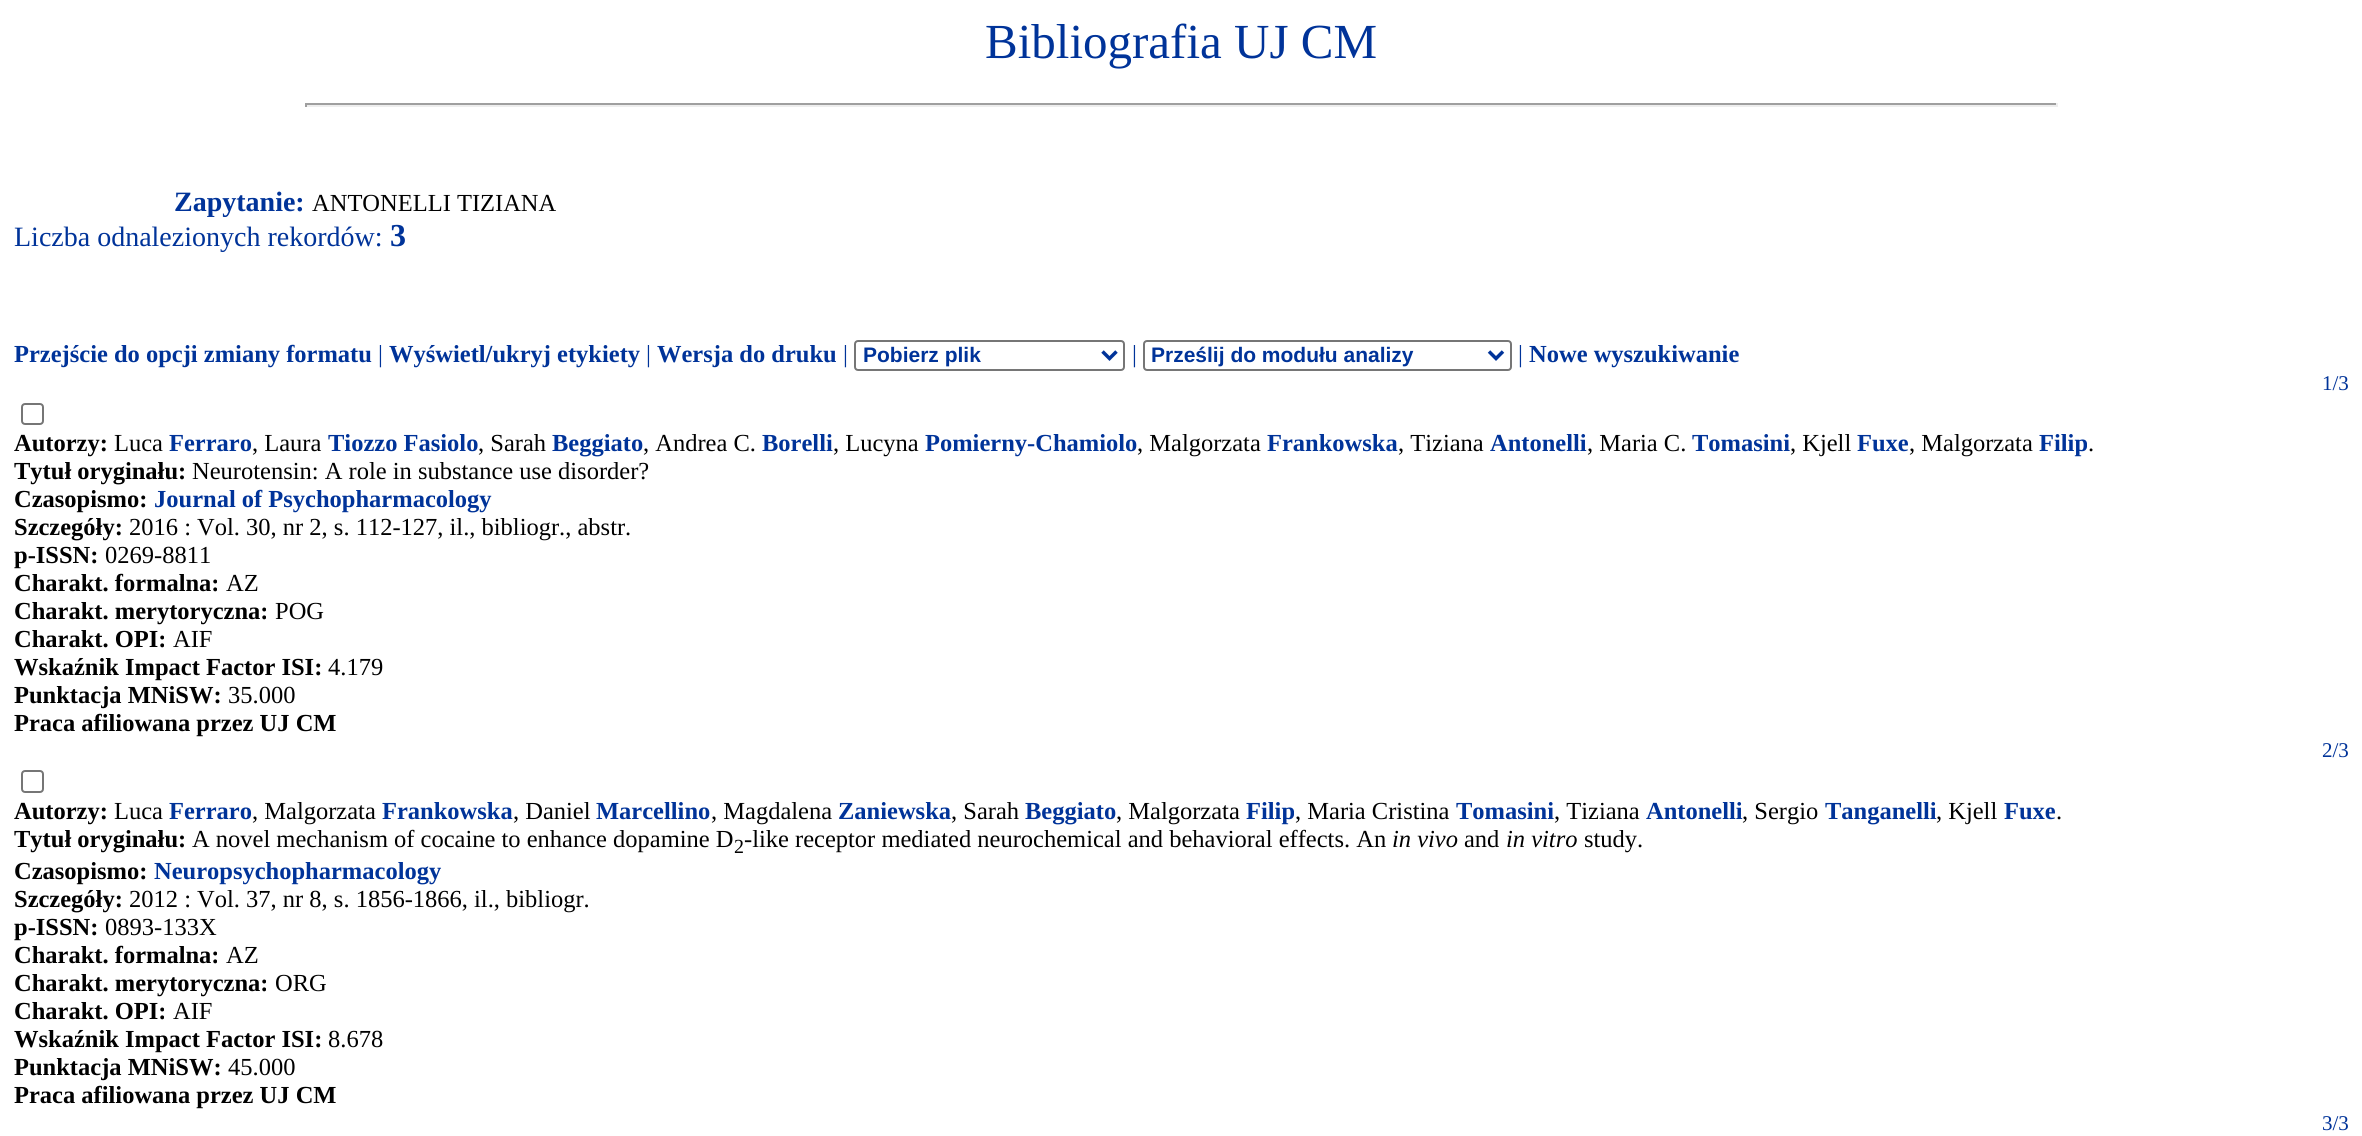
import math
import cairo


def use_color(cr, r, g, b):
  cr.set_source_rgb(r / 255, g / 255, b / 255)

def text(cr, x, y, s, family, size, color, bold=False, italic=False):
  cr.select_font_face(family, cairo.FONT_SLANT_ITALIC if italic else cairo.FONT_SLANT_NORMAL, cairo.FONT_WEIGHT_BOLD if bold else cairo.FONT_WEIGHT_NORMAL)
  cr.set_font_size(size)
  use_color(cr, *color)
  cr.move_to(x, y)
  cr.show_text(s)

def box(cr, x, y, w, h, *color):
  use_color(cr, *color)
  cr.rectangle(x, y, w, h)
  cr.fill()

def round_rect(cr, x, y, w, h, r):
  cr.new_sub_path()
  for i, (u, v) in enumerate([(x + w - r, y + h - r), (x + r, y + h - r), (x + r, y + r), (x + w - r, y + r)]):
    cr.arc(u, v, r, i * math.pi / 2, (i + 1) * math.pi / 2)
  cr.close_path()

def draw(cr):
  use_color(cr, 255, 255, 255)
  cr.paint()
  box(cr, 305, 103, 1753, 2, 159, 159, 159)
  box(cr, 2056, 103, 2, 4, 238, 238, 238)
  box(cr, 305, 105, 1753, 2, 238, 238, 238)
  box(cr, 305, 103, 2, 4, 159, 159, 159)
  round_rect(cr, 855, 341, 269, 29, 3)
  use_color(cr, 118, 118, 118)
  cr.stroke()
  cr.new_path()
  cr.move_to(1102.5, 351.5)
  cr.line_to(1109.5, 358.5)
  cr.line_to(1116.5, 351.5)
  use_color(cr, 0, 51, 153)
  cr.set_line_width(3.5)
  cr.stroke()
  round_rect(cr, 1144, 341, 367, 29, 3)
  use_color(cr, 118, 118, 118)
  cr.set_line_width(2)
  cr.stroke()
  cr.new_path()
  cr.move_to(1489, 351.5)
  cr.line_to(1496, 358.5)
  cr.line_to(1503, 351.5)
  use_color(cr, 0, 51, 153)
  cr.set_line_width(3.5)
  cr.stroke()
  round_rect(cr, 22, 404, 21, 20, 3)
  use_color(cr, 118, 118, 118)
  cr.set_line_width(2)
  cr.stroke()
  round_rect(cr, 22, 771, 21, 21, 3)
  cr.stroke()
  text(cr, 985, 58, "Bibliografia UJ CM", "Liberation Serif", 49, (0, 51, 153))
  text(cr, 174, 211, "Zapytanie:", "Liberation Serif", 28, (0, 51, 153), bold=True)
  text(cr, 312, 211, "ANTONELLI TIZIANA", "Liberation Serif", 24.5, (0, 0, 0))
  text(cr, 14, 246, "Liczba odnalezionych rekordów:", "Liberation Serif", 28, (0, 51, 153))
  text(cr, 390, 246, "3", "Liberation Serif", 32, (0, 51, 153), bold=True)
  text(cr, 14, 362, "Przejście do opcji zmiany formatu", "Liberation Serif", 24.5, (0, 51, 153), bold=True)
  text(cr, 378, 362, "|", "Liberation Serif", 24.5, (0, 51, 153))
  text(cr, 389, 362, "Wyświetl/ukryj etykiety", "Liberation Serif", 24.5, (0, 51, 153), bold=True)
  text(cr, 646, 362, "|", "Liberation Serif", 24.5, (0, 51, 153))
  text(cr, 657, 362, "Wersja do druku", "Liberation Serif", 24.5, (0, 51, 153), bold=True)
  text(cr, 843, 362, "|", "Liberation Serif", 24.5, (0, 51, 153))
  text(cr, 863, 362, "Pobierz plik", "Liberation Sans", 21, (0, 51, 153), bold=True)
  text(cr, 1132, 362, "|", "Liberation Serif", 24.5, (0, 51, 153))
  text(cr, 1151, 362, "Prześlij do modułu analizy", "Liberation Sans", 21, (0, 51, 153), bold=True)
  text(cr, 1518, 362, "|", "Liberation Serif", 24.5, (0, 51, 153))
  text(cr, 1529, 362, "Nowe wyszukiwanie", "Liberation Serif", 24.5, (0, 51, 153), bold=True)
  text(cr, 2322, 390, "1/3", "Liberation Serif", 21, (0, 51, 153))
  text(cr, 14, 451, "Autorzy:", "Liberation Serif", 24.5, (0, 0, 0), bold=True)
  text(cr, 114, 451, "Luca", "Liberation Serif", 24.5, (0, 0, 0))
  text(cr, 169, 451, "Ferraro", "Liberation Serif", 24.5, (0, 51, 153), bold=True)
  text(cr, 252, 451, ", Laura", "Liberation Serif", 24.5, (0, 0, 0))
  text(cr, 328, 451, "Tiozzo Fasiolo", "Liberation Serif", 24.5, (0, 51, 153), bold=True)
  text(cr, 478, 451, ", Sarah", "Liberation Serif", 24.5, (0, 0, 0))
  text(cr, 552, 451, "Beggiato", "Liberation Serif", 24.5, (0, 51, 153), bold=True)
  text(cr, 643, 451, ", Andrea C.", "Liberation Serif", 24.5, (0, 0, 0))
  text(cr, 762, 451, "Borelli", "Liberation Serif", 24.5, (0, 51, 153), bold=True)
  text(cr, 833, 451, ", Lucyna", "Liberation Serif", 24.5, (0, 0, 0))
  text(cr, 925, 451, "Pomierny-Chamiolo", "Liberation Serif", 24.5, (0, 51, 153), bold=True)
  text(cr, 1137, 451, ", Malgorzata", "Liberation Serif", 24.5, (0, 0, 0))
  text(cr, 1267, 451, "Frankowska", "Liberation Serif", 24.5, (0, 51, 153), bold=True)
  text(cr, 1398, 451, ", Tiziana", "Liberation Serif", 24.5, (0, 0, 0))
  text(cr, 1490, 451, "Antonelli", "Liberation Serif", 24.5, (0, 51, 153), bold=True)
  text(cr, 1587, 451, ", Maria C.", "Liberation Serif", 24.5, (0, 0, 0))
  text(cr, 1692, 451, "Tomasini", "Liberation Serif", 24.5, (0, 51, 153), bold=True)
  text(cr, 1790, 451, ", Kjell", "Liberation Serif", 24.5, (0, 0, 0))
  text(cr, 1857, 451, "Fuxe", "Liberation Serif", 24.5, (0, 51, 153), bold=True)
  text(cr, 1909, 451, ", Malgorzata", "Liberation Serif", 24.5, (0, 0, 0))
  text(cr, 2039, 451, "Filip", "Liberation Serif", 24.5, (0, 51, 153), bold=True)
  text(cr, 2088, 451, ".", "Liberation Serif", 24.5, (0, 0, 0))
  text(cr, 14, 479, "Tytuł oryginału:", "Liberation Serif", 24.5, (0, 0, 0), bold=True)
  text(cr, 192, 479, "Neurotensin: A role in substance use disorder?", "Liberation Serif", 24.5, (0, 0, 0))
  text(cr, 14, 507, "Czasopismo:", "Liberation Serif", 24.5, (0, 0, 0), bold=True)
  text(cr, 154, 507, "Journal of Psychopharmacology", "Liberation Serif", 24.5, (0, 51, 153), bold=True)
  text(cr, 14, 535, "Szczegóły:", "Liberation Serif", 24.5, (0, 0, 0), bold=True)
  text(cr, 129, 535, "2016 : Vol. 30, nr 2, s. 112-127, il., bibliogr., abstr.", "Liberation Serif", 24.5, (0, 0, 0))
  text(cr, 14, 563, "p-ISSN:", "Liberation Serif", 24.5, (0, 0, 0), bold=True)
  text(cr, 105, 563, "0269-8811", "Liberation Serif", 24.5, (0, 0, 0))
  text(cr, 14, 591, "Charakt. formalna:", "Liberation Serif", 24.5, (0, 0, 0), bold=True)
  text(cr, 226, 591, "AZ", "Liberation Serif", 24.5, (0, 0, 0))
  text(cr, 14, 619, "Charakt. merytoryczna:", "Liberation Serif", 24.5, (0, 0, 0), bold=True)
  text(cr, 275, 619, "POG", "Liberation Serif", 24.5, (0, 0, 0))
  text(cr, 14, 647, "Charakt. OPI:", "Liberation Serif", 24.5, (0, 0, 0), bold=True)
  text(cr, 173, 647, "AIF", "Liberation Serif", 24.5, (0, 0, 0))
  text(cr, 14, 675, "Wskaźnik Impact Factor ISI:", "Liberation Serif", 24.5, (0, 0, 0), bold=True)
  text(cr, 328, 675, "4.179", "Liberation Serif", 24.5, (0, 0, 0))
  text(cr, 14, 703, "Punktacja MNiSW:", "Liberation Serif", 24.5, (0, 0, 0), bold=True)
  text(cr, 228, 703, "35.000", "Liberation Serif", 24.5, (0, 0, 0))
  text(cr, 14, 731, "Praca afiliowana przez UJ CM", "Liberation Serif", 24.5, (0, 0, 0), bold=True)
  text(cr, 2322, 757, "2/3", "Liberation Serif", 21, (0, 51, 153))
  text(cr, 14, 819, "Autorzy:", "Liberation Serif", 24.5, (0, 0, 0), bold=True)
  text(cr, 114, 819, "Luca", "Liberation Serif", 24.5, (0, 0, 0))
  text(cr, 169, 819, "Ferraro", "Liberation Serif", 24.5, (0, 51, 153), bold=True)
  text(cr, 252, 819, ", Malgorzata", "Liberation Serif", 24.5, (0, 0, 0))
  text(cr, 382, 819, "Frankowska", "Liberation Serif", 24.5, (0, 51, 153), bold=True)
  text(cr, 513, 819, ", Daniel", "Liberation Serif", 24.5, (0, 0, 0))
  text(cr, 596, 819, "Marcellino", "Liberation Serif", 24.5, (0, 51, 153), bold=True)
  text(cr, 711, 819, ", Magdalena", "Liberation Serif", 24.5, (0, 0, 0))
  text(cr, 838, 819, "Zaniewska", "Liberation Serif", 24.5, (0, 51, 153), bold=True)
  text(cr, 951, 819, ", Sarah", "Liberation Serif", 24.5, (0, 0, 0))
  text(cr, 1025, 819, "Beggiato", "Liberation Serif", 24.5, (0, 51, 153), bold=True)
  text(cr, 1116, 819, ", Malgorzata", "Liberation Serif", 24.5, (0, 0, 0))
  text(cr, 1246, 819, "Filip", "Liberation Serif", 24.5, (0, 51, 153), bold=True)
  text(cr, 1295, 819, ", Maria Cristina", "Liberation Serif", 24.5, (0, 0, 0))
  text(cr, 1456, 819, "Tomasini", "Liberation Serif", 24.5, (0, 51, 153), bold=True)
  text(cr, 1554, 819, ", Tiziana", "Liberation Serif", 24.5, (0, 0, 0))
  text(cr, 1646, 819, "Antonelli", "Liberation Serif", 24.5, (0, 51, 153), bold=True)
  text(cr, 1742, 819, ", Sergio", "Liberation Serif", 24.5, (0, 0, 0))
  text(cr, 1825, 819, "Tanganelli", "Liberation Serif", 24.5, (0, 51, 153), bold=True)
  text(cr, 1936, 819, ", Kjell", "Liberation Serif", 24.5, (0, 0, 0))
  text(cr, 2004, 819, "Fuxe", "Liberation Serif", 24.5, (0, 51, 153), bold=True)
  text(cr, 2056, 819, ".", "Liberation Serif", 24.5, (0, 0, 0))
  text(cr, 14, 847, "Tytuł oryginału:", "Liberation Serif", 24.5, (0, 0, 0), bold=True)
  text(cr, 192, 847, "A novel mechanism of cocaine to enhance dopamine D", "Liberation Serif", 24.5, (0, 0, 0))
  text(cr, 734, 853, "2", "Liberation Serif", 20, (0, 0, 0))
  text(cr, 744, 847, "-like receptor mediated neurochemical and behavioral effects. An", "Liberation Serif", 24.5, (0, 0, 0))
  text(cr, 1392, 847, "in vivo", "Liberation Serif", 24.5, (0, 0, 0), italic=True)
  text(cr, 1464, 847, "and", "Liberation Serif", 24.5, (0, 0, 0))
  text(cr, 1506, 847, "in vitro", "Liberation Serif", 24.5, (0, 0, 0), italic=True)
  text(cr, 1584, 847, "study.", "Liberation Serif", 24.5, (0, 0, 0))
  text(cr, 14, 879, "Czasopismo:", "Liberation Serif", 24.5, (0, 0, 0), bold=True)
  text(cr, 154, 879, "Neuropsychopharmacology", "Liberation Serif", 24.5, (0, 51, 153), bold=True)
  text(cr, 14, 907, "Szczegóły:", "Liberation Serif", 24.5, (0, 0, 0), bold=True)
  text(cr, 129, 907, "2012 : Vol. 37, nr 8, s. 1856-1866, il., bibliogr.", "Liberation Serif", 24.5, (0, 0, 0))
  text(cr, 14, 935, "p-ISSN:", "Liberation Serif", 24.5, (0, 0, 0), bold=True)
  text(cr, 105, 935, "0893-133X", "Liberation Serif", 24.5, (0, 0, 0))
  text(cr, 14, 963, "Charakt. formalna:", "Liberation Serif", 24.5, (0, 0, 0), bold=True)
  text(cr, 226, 963, "AZ", "Liberation Serif", 24.5, (0, 0, 0))
  text(cr, 14, 991, "Charakt. merytoryczna:", "Liberation Serif", 24.5, (0, 0, 0), bold=True)
  text(cr, 275, 991, "ORG", "Liberation Serif", 24.5, (0, 0, 0))
  text(cr, 14, 1019, "Charakt. OPI:", "Liberation Serif", 24.5, (0, 0, 0), bold=True)
  text(cr, 173, 1019, "AIF", "Liberation Serif", 24.5, (0, 0, 0))
  text(cr, 14, 1047, "Wskaźnik Impact Factor ISI:", "Liberation Serif", 24.5, (0, 0, 0), bold=True)
  text(cr, 328, 1047, "8.678", "Liberation Serif", 24.5, (0, 0, 0))
  text(cr, 14, 1075, "Punktacja MNiSW:", "Liberation Serif", 24.5, (0, 0, 0), bold=True)
  text(cr, 228, 1075, "45.000", "Liberation Serif", 24.5, (0, 0, 0))
  text(cr, 14, 1103, "Praca afiliowana przez UJ CM", "Liberation Serif", 24.5, (0, 0, 0), bold=True)
  text(cr, 2322, 1130, "3/3", "Liberation Serif", 21, (0, 51, 153))


surface = cairo.ImageSurface(cairo.FORMAT_RGB24, 2362, 1136)
cr = cairo.Context(surface)
options = cairo.FontOptions()
options.set_hint_metrics(cairo.HINT_METRICS_OFF)
options.set_hint_style(cairo.HINT_STYLE_NONE)
cr.set_font_options(options)
cr.set_miter_limit(4)
draw(cr)
surface.write_to_png("out.png")
